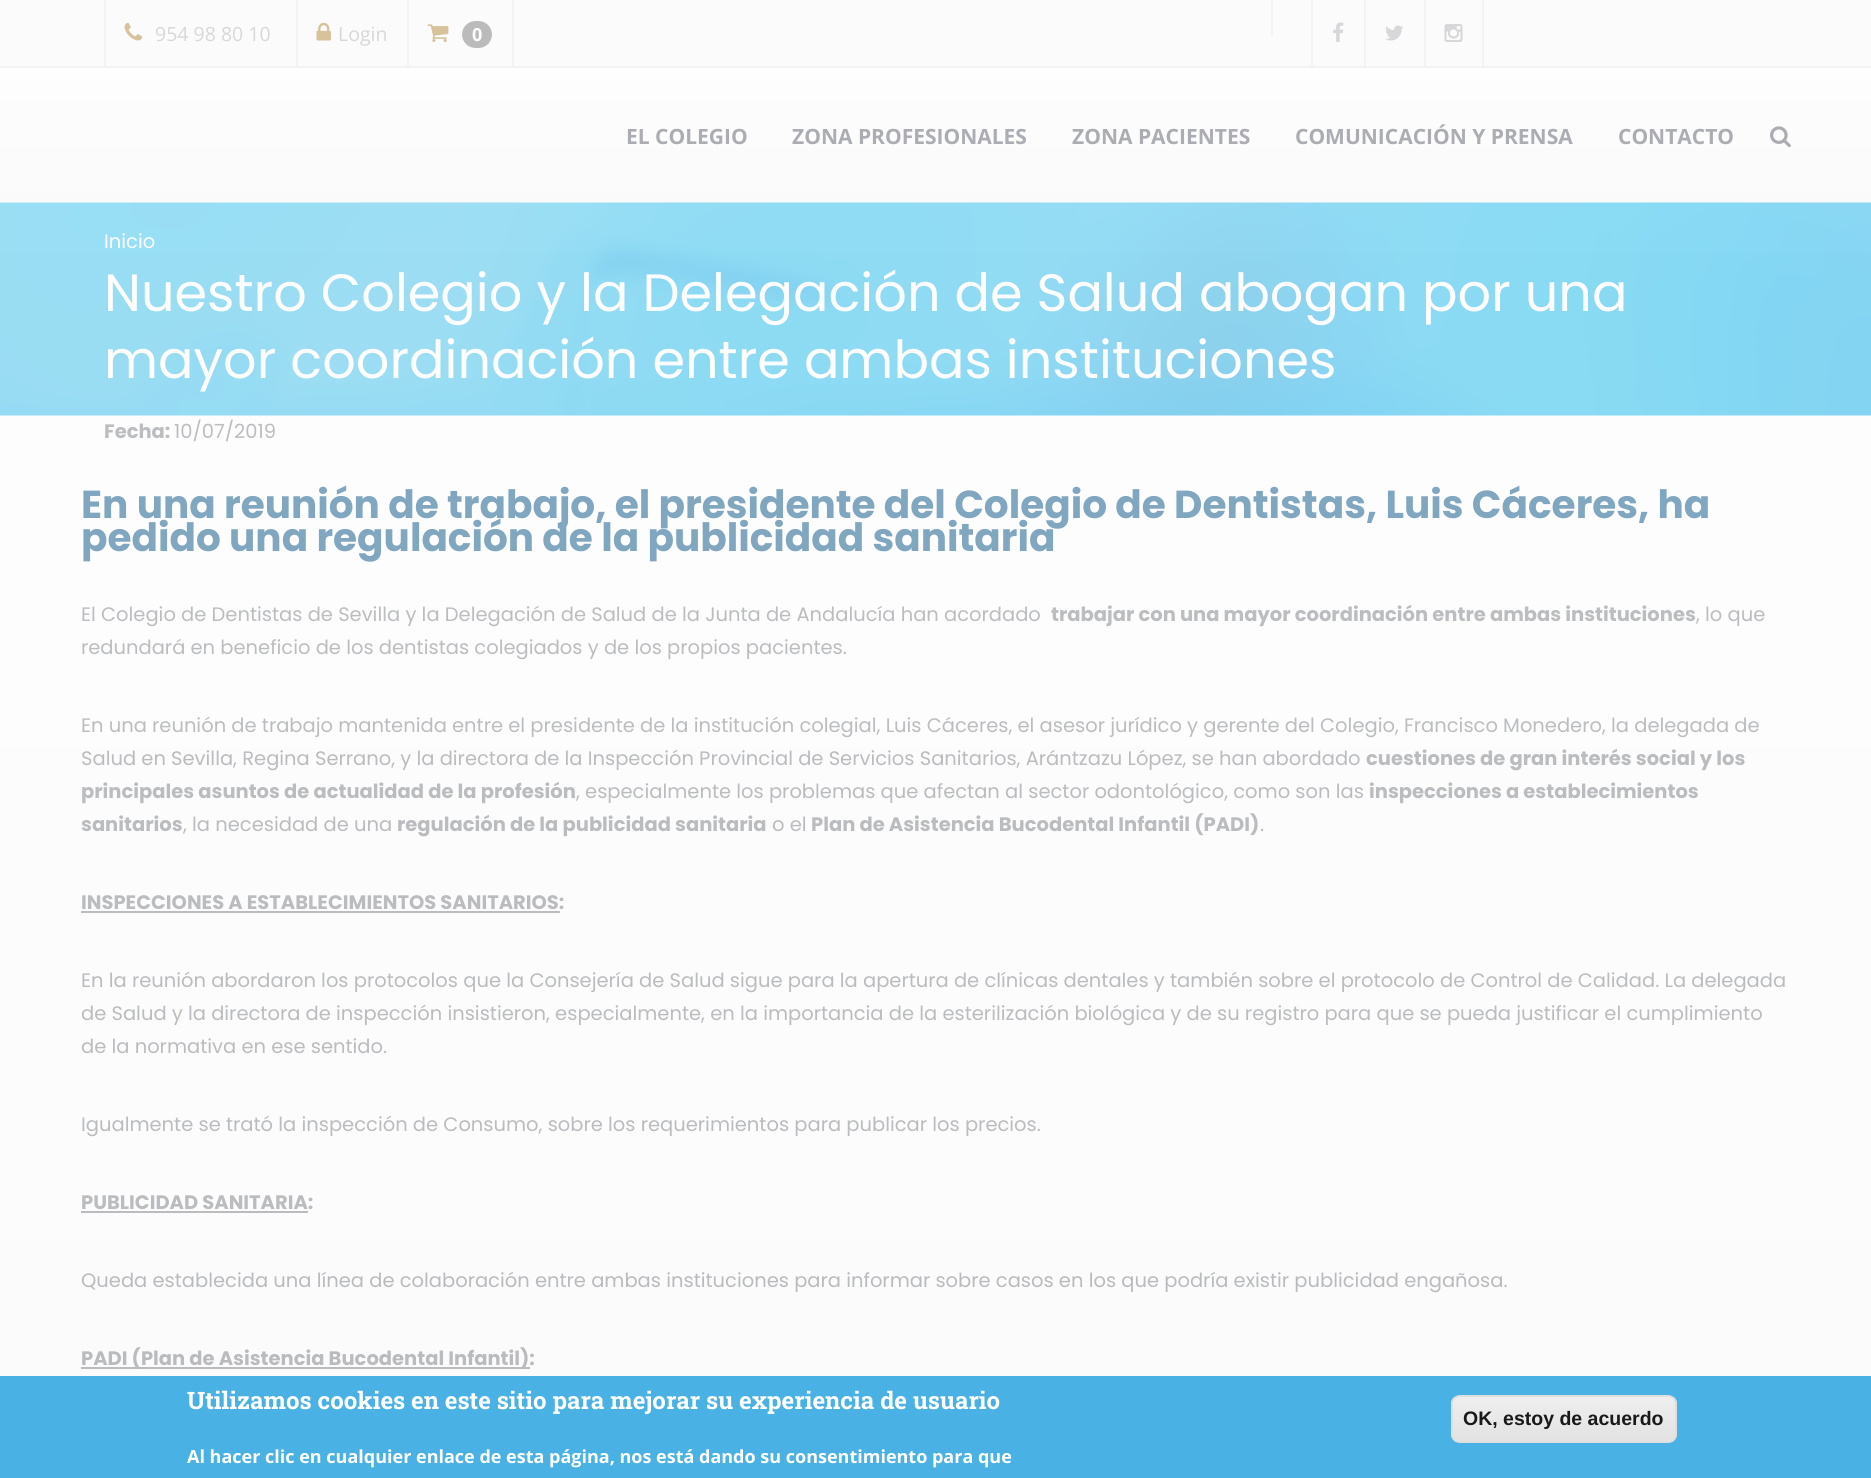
import math
import cairo


def use_color(cr, r, g, b):
  cr.set_source_rgb(r / 255, g / 255, b / 255)

def text(cr, x, y, s, family, size, color, bold=False, italic=False):
  cr.select_font_face(family, cairo.FONT_SLANT_ITALIC if italic else cairo.FONT_SLANT_NORMAL, cairo.FONT_WEIGHT_BOLD if bold else cairo.FONT_WEIGHT_NORMAL)
  cr.set_font_size(size)
  use_color(cr, *color)
  cr.move_to(x, y)
  cr.show_text(s)

def box(cr, x, y, w, h, *color):
  use_color(cr, *color)
  cr.rectangle(x, y, w, h)
  cr.fill()

def round_rect(cr, x, y, w, h, r):
  cr.new_sub_path()
  for i, (u, v) in enumerate([(x + w - r, y + h - r), (x + r, y + h - r), (x + r, y + r), (x + w - r, y + r)]):
    cr.arc(u, v, r, i * math.pi / 2, (i + 1) * math.pi / 2)
  cr.close_path()

def picture(cr, path, x, y, w, h):
  cr.save()
  cr.set_source_surface(cairo.ImageSurface.create_from_png(path), x, y)
  cr.rectangle(x, y, w, h)
  cr.fill()
  cr.restore()

def draw(cr):
  use_color(cr, 255, 255, 255)
  cr.paint()
  box(cr, 0, 0, 1871, 66, 249, 249, 249)
  box(cr, 0, 66, 1871, 2, 232, 232, 232)
  box(cr, 104, 0, 2, 66, 232, 232, 232)
  picture(cr, "img_01.png", 124, 22, 19, 19)
  box(cr, 296, 0, 2, 66, 232, 232, 232)
  picture(cr, "img_02.png", 316, 22, 15, 19)
  box(cr, 512, 0, 2, 66, 232, 232, 232)
  box(cr, 407, 0, 2, 66, 232, 232, 232)
  picture(cr, "img_03.png", 427, 24, 22, 19)
  use_color(cr, 119, 119, 119)
  round_rect(cr, 462, 21, 30, 27, 13.5)
  cr.fill()
  box(cr, 1271, 0, 2, 36, 232, 232, 232)
  box(cr, 1311, 0, 2, 66, 232, 232, 232)
  picture(cr, "img_04.png", 1333, 22, 11, 20)
  box(cr, 1364, 0, 2, 66, 232, 232, 232)
  picture(cr, "img_05.png", 1385, 25, 19, 16)
  box(cr, 1482, 0, 2, 66, 232, 232, 232)
  box(cr, 1424, 0, 2, 66, 232, 232, 232)
  picture(cr, "img_06.png", 1444, 24, 19, 18)
  gradient = cairo.LinearGradient(936, 67, 936, 203)
  gradient.add_color_stop_rgba(0, 0.992, 0.992, 0.992, 1)
  gradient.add_color_stop_rgba(1, 0.969, 0.969, 0.969, 1)
  cr.set_source(gradient)
  cr.rectangle(0, 78, 1871, 125)
  cr.fill()
  picture(cr, "img_07.png", 1770, 126, 21, 22)
  picture(cr, "img_08.png", 0, 202, 1871, 214)
  box(cr, 81, 911, 479, 2, 122, 124, 130)
  box(cr, 81, 1211, 227, 2, 122, 124, 130)
  box(cr, 81, 1367, 449, 2, 122, 124, 130)
  text(cr, 155, 41, "954 98 80 10", "Open Sans", 19.5, (175, 176, 180))
  text(cr, 338, 41, "Login", "Open Sans", 19.5, (175, 176, 180))
  text(cr, 472, 41, "0", "Open Sans", 18, (255, 255, 255), bold=True)
  text(cr, 626, 144, "EL COLEGIO", "Open Sans", 21, (86, 89, 102), bold=True)
  text(cr, 792, 144, "ZONA PROFESIONALES", "Open Sans", 21, (86, 89, 102), bold=True)
  text(cr, 1072, 144, "ZONA PACIENTES", "Open Sans", 21, (86, 89, 102), bold=True)
  text(cr, 1295, 144, "COMUNICACIÓN Y PRENSA", "Open Sans", 21, (86, 89, 102), bold=True)
  text(cr, 1618, 144, "CONTACTO", "Open Sans", 21, (86, 89, 102), bold=True)
  text(cr, 104, 248, "Inicio", "Poppins", 19.5, (255, 255, 255))
  text(cr, 104, 311, "Nuestro Colegio y la Delegación de Salud abogan por una", "Poppins", 52.5, (255, 255, 255))
  text(cr, 104, 378, "mayor coordinación entre ambas instituciones", "Poppins", 52.5, (255, 255, 255))
  text(cr, 104, 438, "Fecha:", "Poppins", 19.5, (122, 124, 130), bold=True)
  text(cr, 174, 438, "10/07/2019", "Poppins", 19.5, (122, 124, 130))
  text(cr, 81, 518, "En una reunión de trabajo, el presidente del Colegio de Dentistas, Luis Cáceres, ha", "Poppins", 39, (0, 78, 131), bold=True)
  text(cr, 81, 551, "pedido una regulación de la publicidad sanitaria", "Poppins", 39, (0, 78, 131), bold=True)
  text(cr, 81, 621, "El Colegio de Dentistas de Sevilla y la Delegación de Salud de la Junta de Andalucía han acordado", "Poppins", 19.5, (122, 124, 130))
  text(cr, 1051, 621, "trabajar con una mayor coordinación entre ambas instituciones", "Poppins", 19.5, (122, 124, 130), bold=True)
  text(cr, 1696, 621, ", lo que", "Poppins", 19.5, (122, 124, 130))
  text(cr, 81, 654, "redundará en beneficio de los dentistas colegiados y de los propios pacientes.", "Poppins", 19.5, (122, 124, 130))
  text(cr, 81, 732, "En una reunión de trabajo mantenida entre el presidente de la institución colegial, Luis Cáceres, el asesor jurídico y gerente del Colegio, Francisco Monedero, la delegada de", "Poppins", 19.5, (122, 124, 130))
  text(cr, 81, 765, "Salud en Sevilla, Regina Serrano, y la directora de la Inspección Provincial de Servicios Sanitarios, Arántzazu López, se han abordado", "Poppins", 19.5, (122, 124, 130))
  text(cr, 1366, 765, "cuestiones de gran interés social y los", "Poppins", 19.5, (122, 124, 130), bold=True)
  text(cr, 81, 798, "principales asuntos de actualidad de la profesión", "Poppins", 19.5, (122, 124, 130), bold=True)
  text(cr, 576, 798, ", especialmente los problemas que afectan al sector odontológico, como son las", "Poppins", 19.5, (122, 124, 130))
  text(cr, 1369, 798, "inspecciones a establecimientos", "Poppins", 19.5, (122, 124, 130), bold=True)
  text(cr, 81, 831, "sanitarios", "Poppins", 19.5, (122, 124, 130), bold=True)
  text(cr, 183, 831, ", la necesidad de una", "Poppins", 19.5, (122, 124, 130))
  text(cr, 397, 831, "regulación de la publicidad sanitaria", "Poppins", 19.5, (122, 124, 130), bold=True)
  text(cr, 772, 831, "o el", "Poppins", 19.5, (122, 124, 130))
  text(cr, 811, 831, "Plan de Asistencia Bucodental Infantil (PADI)", "Poppins", 19.5, (122, 124, 130), bold=True)
  text(cr, 1260, 831, ".", "Poppins", 19.5, (122, 124, 130))
  text(cr, 81, 909, "INSPECCIONES A ESTABLECIMIENTOS SANITARIOS:", "Poppins", 19.5, (122, 124, 130), bold=True)
  text(cr, 81, 987, "En la reunión abordaron los protocolos que la Consejería de Salud sigue para la apertura de clínicas dentales y también sobre el protocolo de Control de Calidad. La delegada", "Poppins", 19.5, (122, 124, 130))
  text(cr, 81, 1020, "de Salud y la directora de inspección insistieron, especialmente, en la importancia de la esterilización biológica y de su registro para que se pueda justificar el cumplimiento", "Poppins", 19.5, (122, 124, 130))
  text(cr, 81, 1053, "de la normativa en ese sentido.", "Poppins", 19.5, (122, 124, 130))
  text(cr, 81, 1131, "Igualmente se trató la inspección de Consumo, sobre los requerimientos para publicar los precios.", "Poppins", 19.5, (122, 124, 130))
  text(cr, 81, 1209, "PUBLICIDAD SANITARIA:", "Poppins", 19.5, (122, 124, 130), bold=True)
  text(cr, 81, 1287, "Queda establecida una línea de colaboración entre ambas instituciones para informar sobre casos en los que podría existir publicidad engañosa.", "Poppins", 19.5, (122, 124, 130))
  text(cr, 81, 1365, "PADI (Plan de Asistencia Bucodental Infantil):", "Poppins", 19.5, (122, 124, 130), bold=True)
  gradient = cairo.LinearGradient(936, 0, 936, 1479)
  gradient.add_color_stop_rgba(0, 0.992, 0.992, 0.992, 0.51)
  gradient.add_color_stop_rgba(1, 0.969, 0.969, 0.969, 0.51)
  cr.set_source(gradient)
  cr.rectangle(0, 0, 1871, 1478)
  cr.fill()
  cr.set_source_rgba(0.212, 0.663, 0.882, 0.9)
  cr.rectangle(0, 1376, 1871, 102)
  cr.fill()
  text(cr, 187, 1409, "Utilizamos cookies en este sitio para mejorar su experiencia de usuario", "Roboto Slab", 24, (255, 255, 255), bold=True)
  text(cr, 187, 1463, "Al hacer clic en cualquier enlace de esta página, nos está dando su consentimiento para que", "Open Sans", 18, (255, 255, 255), bold=True)
  cr.save()
  round_rect(cr, 1451, 1395, 226, 48, 9)
  cr.clip()
  gradient = cairo.LinearGradient(1564, 1397, 1564, 1442)
  gradient.add_color_stop_rgba(0.05, 0.933, 0.933, 0.933, 1)
  gradient.add_color_stop_rgba(1, 0.886, 0.886, 0.886, 1)
  cr.set_source(gradient)
  cr.rectangle(1451, 1397, 226, 45)
  cr.fill()
  cr.restore()
  round_rect(cr, 1452, 1396, 224, 46, 8)
  use_color(cr, 223, 223, 223)
  cr.stroke()
  text(cr, 1463, 1425, "OK, estoy de acuerdo", "Liberation Sans", 19.5, (25, 25, 25), bold=True)


surface = cairo.ImageSurface(cairo.FORMAT_RGB24, 1871, 1478)
cr = cairo.Context(surface)
options = cairo.FontOptions()
options.set_hint_metrics(cairo.HINT_METRICS_OFF)
options.set_hint_style(cairo.HINT_STYLE_NONE)
cr.set_font_options(options)
cr.set_miter_limit(4)
draw(cr)
surface.write_to_png("out.png")
